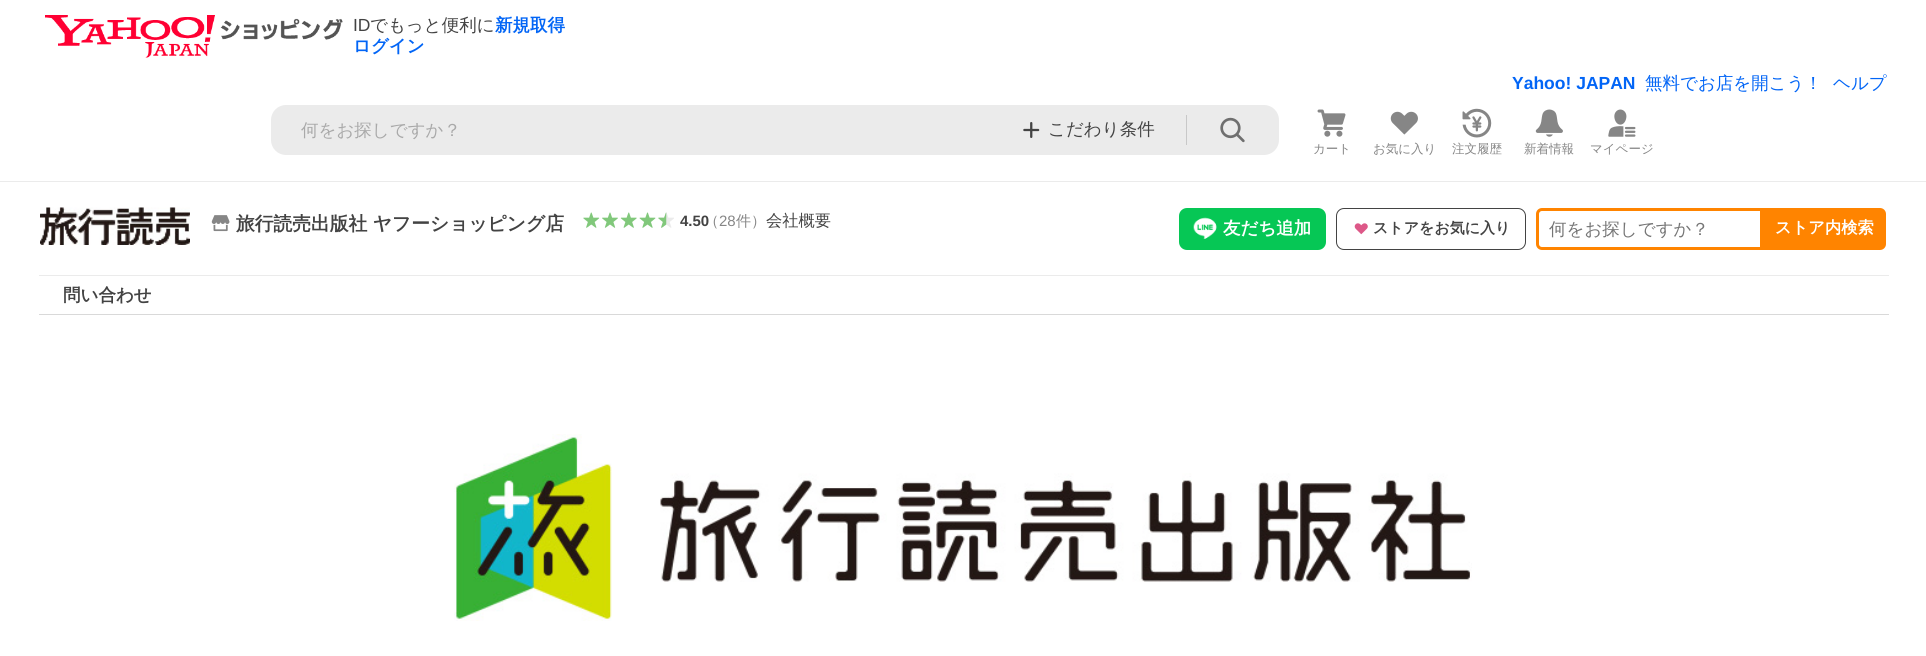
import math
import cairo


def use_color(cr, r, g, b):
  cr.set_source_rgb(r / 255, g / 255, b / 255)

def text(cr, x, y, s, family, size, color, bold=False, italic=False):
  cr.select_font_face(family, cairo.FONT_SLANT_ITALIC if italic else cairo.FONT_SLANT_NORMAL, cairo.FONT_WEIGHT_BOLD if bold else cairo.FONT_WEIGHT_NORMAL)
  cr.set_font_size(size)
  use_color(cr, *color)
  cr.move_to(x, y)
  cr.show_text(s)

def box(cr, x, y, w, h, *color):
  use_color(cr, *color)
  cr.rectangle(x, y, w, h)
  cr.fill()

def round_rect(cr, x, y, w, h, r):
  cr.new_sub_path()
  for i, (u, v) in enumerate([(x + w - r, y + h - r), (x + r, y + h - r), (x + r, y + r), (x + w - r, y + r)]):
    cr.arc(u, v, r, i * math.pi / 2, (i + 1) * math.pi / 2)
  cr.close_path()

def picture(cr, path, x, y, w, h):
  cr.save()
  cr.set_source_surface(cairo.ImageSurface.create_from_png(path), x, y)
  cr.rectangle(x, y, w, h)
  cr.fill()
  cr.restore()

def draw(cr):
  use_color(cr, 255, 255, 255)
  cr.paint()
  box(cr, 0, 181, 1926, 1, 235, 235, 235)
  picture(cr, "img_01.png", 45, 15, 298, 43)
  round_rect(cr, 271, 105, 1008, 50, 15)
  cr.fill()
  picture(cr, "img_02.png", 1023, 122, 17, 16)
  box(cr, 1186, 115, 1, 30, 200, 200, 200)
  picture(cr, "img_03.png", 1220, 117, 25, 26)
  picture(cr, "img_04.png", 1317, 109, 29, 28)
  picture(cr, "img_05.png", 1390, 111, 28, 24)
  picture(cr, "img_06.png", 1462, 108, 30, 30)
  picture(cr, "img_07.png", 1535, 109, 28, 28)
  picture(cr, "img_08.png", 1608, 109, 28, 28)
  picture(cr, "img_09.png", 40, 207, 150, 38)
  picture(cr, "img_10.png", 211, 215, 19, 17)
  picture(cr, "img_11.png", 583, 212, 17, 16)
  picture(cr, "img_12.png", 602, 212, 16, 16)
  picture(cr, "img_13.png", 620, 212, 17, 16)
  picture(cr, "img_14.png", 639, 212, 17, 16)
  picture(cr, "img_15.png", 658, 212, 16, 16)
  picture(cr, "img_16.png", 658, 212, 9, 16)
  use_color(cr, 6, 199, 85)
  round_rect(cr, 1179, 208, 147, 42, 8)
  cr.fill()
  picture(cr, "img_17.png", 1193, 217, 24, 22)
  round_rect(cr, 1336.5, 208.5, 189, 41, 7.5)
  use_color(cr, 67, 67, 67)
  cr.set_line_width(1)
  cr.stroke()
  picture(cr, "img_18.png", 1354, 223, 14, 12)
  round_rect(cr, 1537.5, 209.5, 347, 39, 4.5)
  use_color(cr, 255, 132, 0)
  cr.set_line_width(3)
  cr.stroke()
  cr.new_path()
  cr.move_to(1760, 210)
  cr.line_to(1880, 210)
  cr.curve_to(1882, 210, 1884, 212, 1884, 214)
  cr.line_to(1884, 244)
  cr.curve_to(1884, 246, 1882, 248, 1880, 248)
  cr.line_to(1760, 248)
  cr.close_path()
  cr.fill()
  box(cr, 39, 275, 1850, 1, 235, 235, 235)
  box(cr, 39, 314, 1850, 1, 217, 217, 217)
  picture(cr, "img_19.png", 454, 434, 1018, 187)
  text(cr, 353, 31, "ID", "Liberation Sans", 17.5, (67, 67, 67))
  text(cr, 370, 31, "でもっと便利に", "WenQuanYi Zen Hei Medium", 17.5, (67, 67, 67))
  text(cr, 495, 31, "新規取得", "WenQuanYi Zen Hei", 17.5, (2, 101, 246), bold=True)
  text(cr, 353, 52, "ログイン", "WenQuanYi Zen Hei", 17.5, (2, 101, 246), bold=True)
  text(cr, 1512, 89, "Yahoo! JAPAN", "Liberation Sans", 17.5, (2, 101, 246), bold=True)
  text(cr, 1645, 89, "無料でお店を開こう！", "WenQuanYi Zen Hei Medium", 17.5, (2, 101, 246))
  text(cr, 1833, 89, "ヘルプ", "WenQuanYi Zen Hei Medium", 17.5, (2, 101, 246))
  text(cr, 301, 136, "何をお探しですか？", "WenQuanYi Zen Hei Medium", 17.5, (169, 169, 169))
  text(cr, 1048, 135, "こだわり条件", "WenQuanYi Zen Hei Medium", 17.5, (67, 67, 67))
  text(cr, 1313, 153, "カート", "WenQuanYi Zen Hei Medium", 12.5, (134, 134, 134))
  text(cr, 1373, 153, "お気に入り", "WenQuanYi Zen Hei Medium", 12.5, (134, 134, 134))
  text(cr, 1452, 153, "注文履歴", "WenQuanYi Zen Hei Medium", 12.5, (134, 134, 134))
  text(cr, 1524, 153, "新着情報", "WenQuanYi Zen Hei Medium", 12.5, (134, 134, 134))
  text(cr, 1590, 153, "マイページ", "WenQuanYi Zen Hei Medium", 12.5, (134, 134, 134))
  text(cr, 236, 230, "旅行読売出版社 ヤフーショッピング店", "WenQuanYi Zen Hei", 18.75, (67, 67, 67), bold=True)
  text(cr, 680, 226, "4.50", "Liberation Sans", 15, (67, 67, 67), bold=True)
  text(cr, 704, 226, "（", "WenQuanYi Zen Hei Medium", 15, (134, 134, 134))
  text(cr, 719, 226, "28", "Liberation Sans", 15, (134, 134, 134))
  text(cr, 736, 226, "件）", "WenQuanYi Zen Hei Medium", 15, (134, 134, 134))
  text(cr, 766, 226, "会社概要", "WenQuanYi Zen Hei Medium", 16.25, (67, 67, 67))
  text(cr, 1223, 234, "友だち追加", "WenQuanYi Zen Hei", 17.5, (255, 255, 255), bold=True)
  text(cr, 1373, 233, "ストアをお気に入り", "WenQuanYi Zen Hei", 15, (67, 67, 67), bold=True)
  text(cr, 1549, 235, "何をお探しですか？", "WenQuanYi Zen Hei Medium", 17.5, (117, 117, 117))
  text(cr, 1775, 233, "ストア内検索", "WenQuanYi Zen Hei", 16.25, (255, 255, 255), bold=True)
  text(cr, 63, 301, "問い合わせ", "WenQuanYi Zen Hei", 17.5, (67, 67, 67), bold=True)


surface = cairo.ImageSurface(cairo.FORMAT_RGB24, 1926, 656)
cr = cairo.Context(surface)
options = cairo.FontOptions()
options.set_hint_metrics(cairo.HINT_METRICS_OFF)
options.set_hint_style(cairo.HINT_STYLE_NONE)
cr.set_font_options(options)
cr.set_miter_limit(4)
draw(cr)
surface.write_to_png("out.png")
